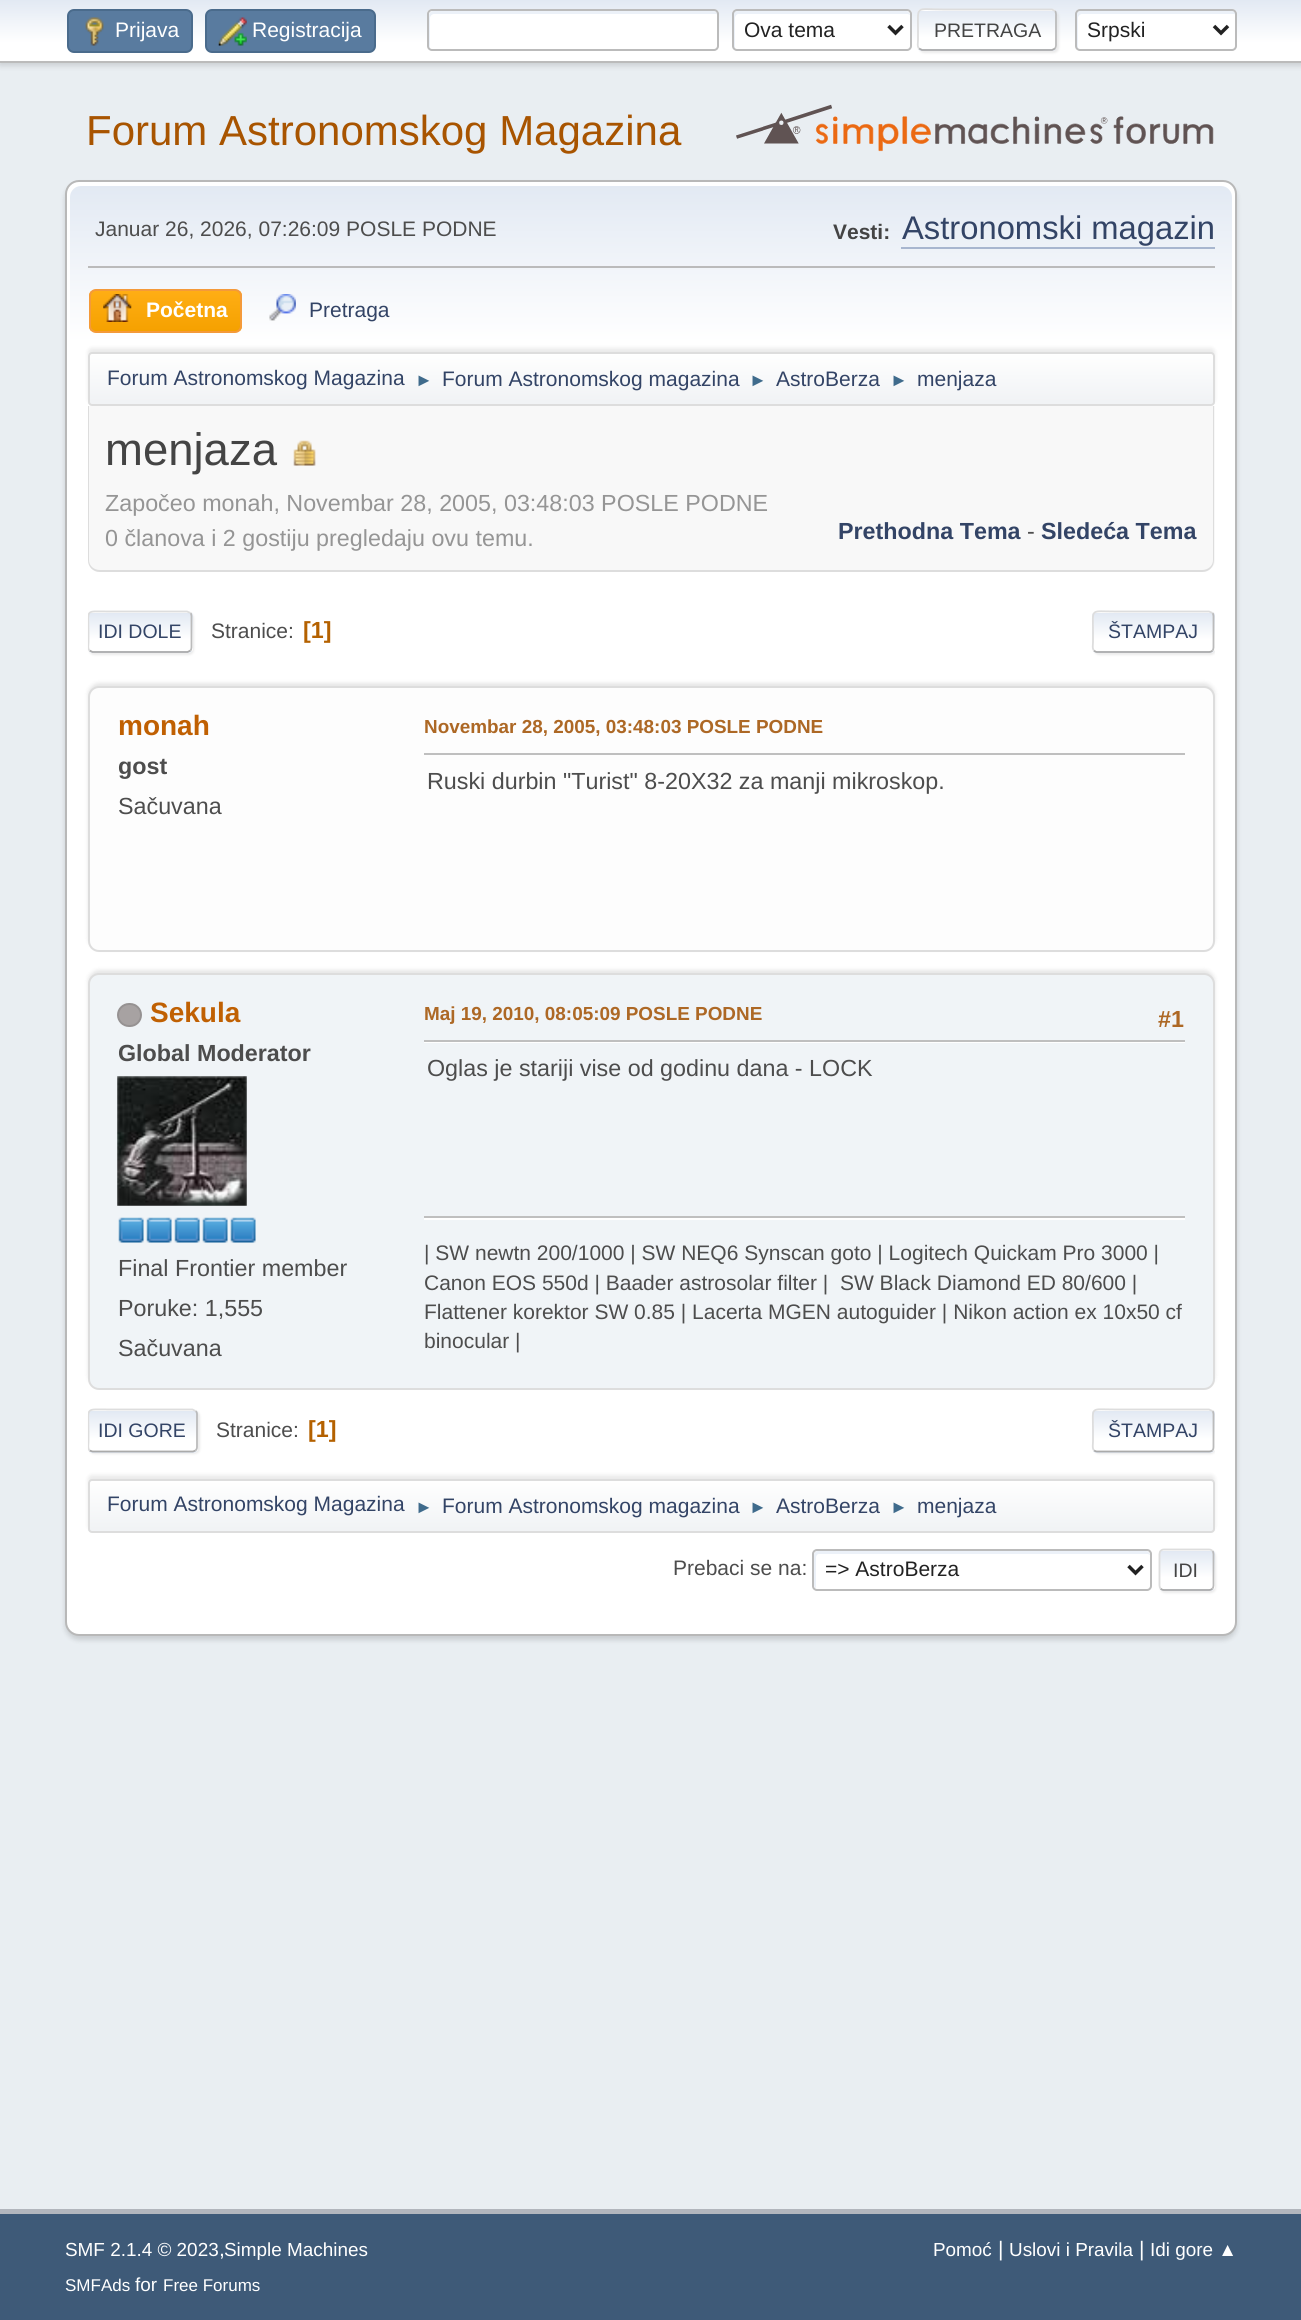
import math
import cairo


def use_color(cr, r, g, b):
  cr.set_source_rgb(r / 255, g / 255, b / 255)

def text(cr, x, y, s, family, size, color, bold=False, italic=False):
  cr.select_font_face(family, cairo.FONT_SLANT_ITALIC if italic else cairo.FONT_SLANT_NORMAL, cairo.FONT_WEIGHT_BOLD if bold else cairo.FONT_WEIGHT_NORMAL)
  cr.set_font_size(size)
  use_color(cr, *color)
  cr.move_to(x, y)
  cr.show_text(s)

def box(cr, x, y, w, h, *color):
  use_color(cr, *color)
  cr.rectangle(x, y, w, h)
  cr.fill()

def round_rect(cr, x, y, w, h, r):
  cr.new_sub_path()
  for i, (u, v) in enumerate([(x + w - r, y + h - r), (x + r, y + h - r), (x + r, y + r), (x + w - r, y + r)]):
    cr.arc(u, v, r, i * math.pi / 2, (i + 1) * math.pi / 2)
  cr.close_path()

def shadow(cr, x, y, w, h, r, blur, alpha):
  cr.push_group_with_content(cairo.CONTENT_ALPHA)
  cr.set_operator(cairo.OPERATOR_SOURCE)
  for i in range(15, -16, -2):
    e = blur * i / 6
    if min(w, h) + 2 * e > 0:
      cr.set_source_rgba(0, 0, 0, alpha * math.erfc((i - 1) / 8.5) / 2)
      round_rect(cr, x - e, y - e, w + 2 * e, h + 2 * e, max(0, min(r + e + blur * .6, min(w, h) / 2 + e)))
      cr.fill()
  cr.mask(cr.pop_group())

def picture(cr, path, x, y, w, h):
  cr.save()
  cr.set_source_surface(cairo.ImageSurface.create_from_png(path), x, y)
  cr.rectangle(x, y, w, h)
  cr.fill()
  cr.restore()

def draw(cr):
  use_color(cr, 233, 238, 242)
  cr.paint()
  use_color(cr, 0, 0, 0)
  shadow(cr, 0, 2, 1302, 63, 0, 3.5, 0.16)
  gradient = cairo.LinearGradient(651, 0, 651, 61)
  gradient.add_color_stop_rgba(0, 0.886, 0.914, 0.953, 1)
  gradient.add_color_stop_rgba(0.7, 1, 1, 1, 1)
  cr.set_source(gradient)
  cr.rectangle(0, 0, 1301, 61)
  cr.fill()
  box(cr, 0, 61, 1301, 2, 187, 187, 187)
  use_color(cr, 89, 123, 159)
  round_rect(cr, 68, 10, 124, 42, 6)
  cr.fill_preserve()
  use_color(cr, 74, 107, 140)
  cr.stroke()
  picture(cr, "img_01.png", 85, 17, 19, 29)
  use_color(cr, 89, 123, 159)
  round_rect(cr, 206, 10, 169, 42, 6)
  cr.fill_preserve()
  use_color(cr, 74, 107, 140)
  cr.stroke()
  picture(cr, "img_02.png", 218, 17, 29, 29)
  use_color(cr, 255, 255, 255)
  round_rect(cr, 427, 9, 292, 42, 5)
  cr.fill()
  use_color(cr, 236, 241, 248)
  cr.new_path()
  cr.move_to(434, 14)
  cr.line_to(716, 14)
  cr.line_to(718, 15)
  cr.curve_to(718, 13, 716, 11, 714, 11)
  cr.line_to(433, 11)
  cr.curve_to(431, 11, 429, 13, 429, 15)
  cr.line_to(429, 45)
  cr.curve_to(429, 46, 429, 47, 430, 48)
  cr.line_to(430, 18)
  cr.curve_to(430, 16, 432, 14, 434, 14)
  cr.close_path()
  cr.fill()
  round_rect(cr, 428, 10, 290, 40, 4)
  use_color(cr, 187, 187, 187)
  cr.stroke()
  use_color(cr, 255, 255, 255)
  round_rect(cr, 732, 9, 180, 42, 5)
  cr.fill()
  use_color(cr, 236, 241, 248)
  cr.new_path()
  cr.move_to(738, 14)
  cr.line_to(908, 14)
  cr.line_to(910, 15)
  cr.curve_to(910, 13, 908, 11, 906, 11)
  cr.line_to(737, 11)
  cr.curve_to(735, 11, 733, 13, 733, 15)
  cr.line_to(733, 45)
  cr.curve_to(733, 46, 734, 48, 735, 48)
  cr.line_to(735, 18)
  cr.curve_to(735, 16, 737, 14, 738, 14)
  cr.close_path()
  cr.fill()
  round_rect(cr, 733, 10, 178, 40, 4)
  use_color(cr, 187, 187, 187)
  cr.stroke()
  cr.new_path()
  cr.move_to(888.5, 26)
  cr.line_to(895.5, 33)
  cr.line_to(902.5, 26)
  use_color(cr, 34, 34, 34)
  cr.set_line_width(3.5)
  cr.stroke()
  use_color(cr, 221, 221, 221)
  shadow(cr, 919, 11, 140, 42, 5, 1, 0.57)
  cr.save()
  round_rect(cr, 917, 9, 140, 42, 5)
  cr.clip()
  gradient = cairo.LinearGradient(987, -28, 987, 11)
  gradient.add_color_stop_rgba(0, 0.886, 0.914, 0.953, 1)
  gradient.add_color_stop_rgba(0.7, 1, 1, 1, 1)
  cr.set_source(gradient)
  cr.rectangle(917, 9, 140, 2)
  cr.fill()
  gradient = cairo.LinearGradient(987, 10, 987, 49)
  gradient.add_color_stop_rgba(0, 0.886, 0.914, 0.953, 1)
  gradient.add_color_stop_rgba(0.7, 1, 1, 1, 1)
  cr.set_source(gradient)
  cr.rectangle(917, 11, 140, 38)
  cr.fill()
  gradient = cairo.LinearGradient(987, 49, 987, 88)
  gradient.add_color_stop_rgba(0, 0.886, 0.914, 0.953, 1)
  gradient.add_color_stop_rgba(0.7, 1, 1, 1, 1)
  cr.set_source(gradient)
  cr.rectangle(917, 49, 140, 2)
  cr.fill()
  cr.restore()
  cr.new_path()
  cr.move_to(1055, 11)
  cr.curve_to(1055.5, 11.5, 1056, 13, 1056, 14)
  cr.line_to(1056, 45.5)
  cr.curve_to(1056, 46.5, 1055.5, 48, 1055, 48.5)
  use_color(cr, 187, 187, 187)
  cr.set_line_width(1.8)
  cr.stroke()
  cr.new_path()
  cr.move_to(1055, 48.5)
  cr.line_to(1052, 50)
  cr.line_to(944, 50)
  cr.line_to(922, 50)
  cr.line_to(919, 48.5)
  use_color(cr, 170, 170, 170)
  cr.stroke()
  cr.new_path()
  cr.move_to(919, 48.5)
  cr.curve_to(917, 46.5, 918, 42.5, 918, 40)
  cr.line_to(918, 30)
  cr.curve_to(918, 4.5, 915, 9.5, 944, 9.5)
  cr.line_to(1052, 9.5)
  cr.line_to(1055, 11)
  use_color(cr, 221, 221, 221)
  cr.stroke()
  use_color(cr, 255, 255, 255)
  round_rect(cr, 1075, 9, 162, 42, 5)
  cr.fill()
  use_color(cr, 236, 241, 248)
  cr.new_path()
  cr.move_to(1082, 14)
  cr.line_to(1234, 14)
  cr.line_to(1236, 15)
  cr.curve_to(1236, 13, 1234, 11, 1232, 11)
  cr.line_to(1080, 11)
  cr.curve_to(1078, 11, 1076, 13, 1076, 15)
  cr.line_to(1076, 45)
  cr.curve_to(1076, 46, 1077, 48, 1078, 48)
  cr.line_to(1078, 18)
  cr.curve_to(1078, 16, 1080, 14, 1082, 14)
  cr.close_path()
  cr.fill()
  round_rect(cr, 1076, 10, 160, 40, 4)
  use_color(cr, 187, 187, 187)
  cr.set_line_width(2)
  cr.stroke()
  cr.new_path()
  cr.move_to(1214, 26)
  cr.line_to(1221, 33)
  cr.line_to(1228, 26)
  use_color(cr, 34, 34, 34)
  cr.set_line_width(3.5)
  cr.stroke()
  picture(cr, "img_03.png", 736, 104, 478, 48)
  use_color(cr, 0, 0, 0)
  shadow(cr, 65, 184, 1172, 1456, 14, 2.5, 0.14)
  use_color(cr, 255, 255, 255)
  round_rect(cr, 66, 181, 1170, 1454, 13)
  cr.fill_preserve()
  use_color(cr, 184, 184, 184)
  cr.set_line_width(2)
  cr.stroke()
  gradient = cairo.LinearGradient(651, 185, 651, 410)
  gradient.add_color_stop_rgba(0, 0.886, 0.914, 0.953, 1)
  gradient.add_color_stop_rgba(0.7, 1, 1, 1, 1)
  cr.set_source(gradient)
  cr.new_path()
  cr.move_to(81, 186)
  cr.line_to(1221, 186)
  cr.curve_to(1227, 186, 1232, 191, 1232, 197)
  cr.line_to(1232, 410)
  cr.line_to(70, 410)
  cr.line_to(70, 197)
  cr.curve_to(70, 191, 75, 186, 81, 186)
  cr.close_path()
  cr.fill()
  box(cr, 88, 266, 1127, 2, 187, 187, 187)
  box(cr, 901, 247, 314, 2, 168, 182, 207)
  cr.save()
  round_rect(cr, 89, 289, 153, 44, 7)
  cr.clip()
  gradient = cairo.LinearGradient(165, 291, 165, 331)
  gradient.add_color_stop_rgba(0, 1, 0.682, 0.078, 1)
  gradient.add_color_stop_rgba(1, 0.961, 0.631, 0, 1)
  cr.set_source(gradient)
  cr.rectangle(89, 291, 153, 40)
  cr.fill()
  cr.restore()
  round_rect(cr, 90, 290, 151, 42, 6)
  use_color(cr, 244, 154, 58)
  cr.stroke()
  picture(cr, "img_04.png", 103, 294, 29, 28)
  picture(cr, "img_05.png", 269, 294, 27, 27)
  use_color(cr, 0, 0, 0)
  shadow(cr, 88, 348, 1127, 55, 4, 2, 0.08)
  cr.save()
  round_rect(cr, 88, 352, 1127, 54, 4)
  cr.clip()
  gradient = cairo.LinearGradient(651, 353, 651, 404)
  gradient.add_color_stop_rgba(0, 1, 1, 1, 1)
  gradient.add_color_stop_rgba(0.95, 0.945, 0.953, 0.961, 1)
  cr.set_source(gradient)
  cr.rectangle(88, 354, 1127, 50)
  cr.fill()
  cr.restore()
  round_rect(cr, 89, 353, 1125, 52, 3)
  use_color(cr, 221, 221, 221)
  cr.stroke()
  use_color(cr, 248, 248, 248)
  cr.new_path()
  cr.move_to(88, 406)
  cr.line_to(1215, 406)
  cr.line_to(1215, 560)
  cr.curve_to(1215, 566.5, 1209.5, 572, 1203, 572)
  cr.line_to(100, 572)
  cr.curve_to(93.5, 572, 88, 566.5, 88, 560)
  cr.close_path()
  cr.fill()
  use_color(cr, 221, 221, 221)
  cr.set_fill_rule(cairo.FILL_RULE_EVEN_ODD)
  cr.new_path()
  cr.move_to(88, 406)
  cr.line_to(1214, 406)
  cr.line_to(1214, 560)
  cr.curve_to(1214, 567, 1209, 572, 1202, 572)
  cr.line_to(100, 572)
  cr.curve_to(93, 572, 88, 567, 88, 560)
  cr.close_path()
  cr.move_to(89, 406)
  cr.line_to(1213, 406)
  cr.line_to(1213, 560)
  cr.curve_to(1213, 566, 1208, 570, 1202, 570)
  cr.line_to(100, 570)
  cr.curve_to(94, 570, 89, 566, 89, 560)
  cr.close_path()
  cr.fill()
  picture(cr, "img_06.png", 293, 440, 23, 26)
  use_color(cr, 221, 221, 221)
  shadow(cr, 89, 613, 105, 42, 5, 1, 0.57)
  use_color(cr, 255, 255, 255)
  round_rect(cr, 88, 611, 105, 42, 5)
  cr.fill()
  cr.save()
  cr.set_fill_rule(cairo.FILL_RULE_WINDING)
  round_rect(cr, 88, 611, 105, 42, 5)
  cr.clip()
  gradient = cairo.LinearGradient(140, 613, 140, 651)
  gradient.add_color_stop_rgba(0, 0.886, 0.914, 0.953, 1)
  gradient.add_color_stop_rgba(0.7, 1, 1, 1, 1)
  cr.set_source(gradient)
  cr.rectangle(88, 613, 105, 38)
  cr.fill()
  gradient = cairo.LinearGradient(140, 651, 140, 690)
  gradient.add_color_stop_rgba(0, 0.886, 0.914, 0.953, 1)
  gradient.add_color_stop_rgba(0.7, 1, 1, 1, 1)
  cr.set_source(gradient)
  cr.rectangle(88, 651, 105, 2)
  cr.fill()
  cr.restore()
  cr.new_path()
  cr.move_to(190.5, 613)
  cr.curve_to(191, 613.5, 191.5, 615, 191.5, 616)
  cr.line_to(191.5, 647.5)
  cr.curve_to(191.5, 648.5, 191, 650, 190.5, 650.5)
  use_color(cr, 187, 187, 187)
  cr.set_line_width(1.8)
  cr.stroke()
  cr.new_path()
  cr.move_to(190.5, 650.5)
  cr.line_to(187.5, 652)
  cr.line_to(92.5, 652)
  cr.line_to(89.5, 650.5)
  use_color(cr, 170, 170, 170)
  cr.stroke()
  cr.save()
  cr.set_fill_rule(cairo.FILL_RULE_WINDING)
  cr.rectangle(88, 599, 1127, 66)
  cr.clip()
  cr.new_path()
  cr.move_to(89.5, 650.5)
  cr.curve_to(87.5, 648.5, 88.5, 644.5, 88.5, 642)
  cr.line_to(88.5, 632)
  cr.curve_to(88.5, 608.5, 84.5, 611.5, 108.5, 611.5)
  cr.line_to(187, 611.5)
  cr.line_to(190.5, 613)
  use_color(cr, 221, 221, 221)
  cr.stroke()
  cr.restore()
  cr.save()
  cr.set_fill_rule(cairo.FILL_RULE_WINDING)
  cr.rectangle(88, 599, 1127, 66)
  cr.clip()
  use_color(cr, 221, 221, 221)
  shadow(cr, 1094, 613, 122, 42, 5, 1, 0.57)
  cr.restore()
  use_color(cr, 255, 255, 255)
  round_rect(cr, 1092, 611, 123, 42, 5)
  cr.fill()
  cr.save()
  cr.set_fill_rule(cairo.FILL_RULE_WINDING)
  round_rect(cr, 1092, 611, 123, 42, 5)
  cr.clip()
  gradient = cairo.LinearGradient(1153, 613, 1153, 651)
  gradient.add_color_stop_rgba(0, 0.886, 0.914, 0.953, 1)
  gradient.add_color_stop_rgba(0.7, 1, 1, 1, 1)
  cr.set_source(gradient)
  cr.rectangle(1092, 613, 123, 38)
  cr.fill()
  gradient = cairo.LinearGradient(1153, 651, 1153, 690)
  gradient.add_color_stop_rgba(0, 0.886, 0.914, 0.953, 1)
  gradient.add_color_stop_rgba(0.7, 1, 1, 1, 1)
  cr.set_source(gradient)
  cr.rectangle(1092, 651, 123, 2)
  cr.fill()
  cr.restore()
  cr.new_path()
  cr.move_to(1212.5, 613)
  cr.curve_to(1213, 613.5, 1213.5, 615, 1213.5, 616)
  cr.line_to(1213.5, 647.5)
  cr.curve_to(1213.5, 648.5, 1213, 650, 1212.5, 650.5)
  use_color(cr, 187, 187, 187)
  cr.stroke()
  cr.new_path()
  cr.move_to(1212.5, 650.5)
  cr.curve_to(1211.5, 651.5, 1210.5, 652, 1209, 652)
  cr.line_to(1097, 652)
  cr.curve_to(1096, 652, 1095, 651.5, 1094, 650.5)
  use_color(cr, 170, 170, 170)
  cr.stroke()
  cr.new_path()
  cr.move_to(1094, 650.5)
  cr.curve_to(1092, 648.5, 1093, 644.5, 1093, 642)
  cr.line_to(1093, 632)
  cr.curve_to(1093, 607.5, 1089.5, 611.5, 1116, 611.5)
  cr.line_to(1209, 611.5)
  cr.line_to(1212.5, 613)
  use_color(cr, 221, 221, 221)
  cr.stroke()
  use_color(cr, 0, 0, 0)
  shadow(cr, 88, 683, 1127, 266, 11, 2, 0.1)
  use_color(cr, 253, 253, 253)
  round_rect(cr, 89, 687, 1125, 264, 10)
  cr.fill_preserve()
  use_color(cr, 221, 221, 221)
  cr.set_line_width(2)
  cr.stroke()
  box(cr, 424, 753, 761, 2, 191, 191, 191)
  use_color(cr, 0, 0, 0)
  shadow(cr, 88, 970, 1127, 416, 11, 2, 0.1)
  use_color(cr, 240, 244, 247)
  round_rect(cr, 89, 974, 1125, 415, 10)
  cr.fill_preserve()
  use_color(cr, 221, 221, 221)
  cr.stroke()
  use_color(cr, 167, 162, 162)
  round_rect(cr, 118, 1004, 23, 22, 11)
  cr.fill_preserve()
  use_color(cr, 150, 146, 146)
  cr.stroke()
  picture(cr, "img_07.png", 117, 1076, 130, 130)
  picture(cr, "img_08.png", 118, 1217, 26, 26)
  picture(cr, "img_08.png", 146, 1217, 26, 26)
  picture(cr, "img_09.png", 174, 1217, 26, 26)
  picture(cr, "img_08.png", 202, 1217, 26, 26)
  picture(cr, "img_08.png", 230, 1217, 26, 26)
  box(cr, 424, 1042, 761, 1, 255, 255, 255)
  box(cr, 424, 1040, 761, 2, 191, 191, 191)
  box(cr, 424, 1218, 761, 2, 255, 255, 255)
  box(cr, 424, 1216, 761, 2, 191, 191, 191)
  use_color(cr, 221, 221, 221)
  shadow(cr, 89, 1411, 111, 43, 5, 1, 0.57)
  use_color(cr, 255, 255, 255)
  round_rect(cr, 88, 1409, 110, 44, 5)
  cr.fill()
  cr.save()
  cr.set_fill_rule(cairo.FILL_RULE_WINDING)
  round_rect(cr, 88, 1409, 110, 44, 5)
  cr.clip()
  gradient = cairo.LinearGradient(143, 1411, 143, 1451)
  gradient.add_color_stop_rgba(0, 0.886, 0.914, 0.953, 1)
  gradient.add_color_stop_rgba(0.7, 1, 1, 1, 1)
  cr.set_source(gradient)
  cr.rectangle(88, 1411, 110, 40)
  cr.fill()
  gradient = cairo.LinearGradient(143, 1451, 143, 1491)
  gradient.add_color_stop_rgba(0, 0.886, 0.914, 0.953, 1)
  gradient.add_color_stop_rgba(0.7, 1, 1, 1, 1)
  cr.set_source(gradient)
  cr.rectangle(88, 1451, 110, 2)
  cr.fill()
  cr.restore()
  cr.new_path()
  cr.move_to(195.5, 1411)
  cr.curve_to(196.5, 1411.5, 197, 1413, 197, 1414)
  cr.line_to(197, 1447)
  cr.curve_to(197, 1448.5, 196.5, 1449.5, 195.5, 1450.5)
  use_color(cr, 187, 187, 187)
  cr.set_line_width(1.8)
  cr.stroke()
  cr.new_path()
  cr.move_to(195.5, 1450.5)
  cr.line_to(193, 1451.5)
  cr.line_to(92.5, 1451.5)
  cr.line_to(89.5, 1450.5)
  use_color(cr, 170, 170, 170)
  cr.stroke()
  cr.save()
  cr.set_fill_rule(cairo.FILL_RULE_WINDING)
  cr.rectangle(88, 1397, 1127, 68)
  cr.clip()
  cr.new_path()
  cr.move_to(89.5, 1450.5)
  cr.curve_to(87.5, 1448, 88.5, 1444, 88.5, 1441.5)
  cr.line_to(88.5, 1430.5)
  cr.curve_to(88.5, 1406.5, 84.5, 1409.5, 109.5, 1409.5)
  cr.line_to(192.5, 1409.5)
  cr.line_to(195.5, 1411)
  use_color(cr, 221, 221, 221)
  cr.stroke()
  cr.restore()
  cr.save()
  cr.set_fill_rule(cairo.FILL_RULE_WINDING)
  cr.rectangle(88, 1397, 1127, 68)
  cr.clip()
  use_color(cr, 221, 221, 221)
  shadow(cr, 1094, 1411, 122, 43, 5, 1, 0.57)
  cr.restore()
  use_color(cr, 255, 255, 255)
  round_rect(cr, 1092, 1409, 123, 44, 5)
  cr.fill()
  cr.save()
  cr.set_fill_rule(cairo.FILL_RULE_WINDING)
  round_rect(cr, 1092, 1409, 123, 44, 5)
  cr.clip()
  gradient = cairo.LinearGradient(1153, 1411, 1153, 1451)
  gradient.add_color_stop_rgba(0, 0.886, 0.914, 0.953, 1)
  gradient.add_color_stop_rgba(0.7, 1, 1, 1, 1)
  cr.set_source(gradient)
  cr.rectangle(1092, 1411, 123, 40)
  cr.fill()
  gradient = cairo.LinearGradient(1153, 1451, 1153, 1491)
  gradient.add_color_stop_rgba(0, 0.886, 0.914, 0.953, 1)
  gradient.add_color_stop_rgba(0.7, 1, 1, 1, 1)
  cr.set_source(gradient)
  cr.rectangle(1092, 1451, 123, 2)
  cr.fill()
  cr.restore()
  cr.new_path()
  cr.move_to(1212.5, 1411)
  cr.curve_to(1213, 1411.5, 1213.5, 1413, 1213.5, 1414)
  cr.line_to(1213.5, 1447)
  cr.curve_to(1213.5, 1448.5, 1213, 1449.5, 1212.5, 1450.5)
  use_color(cr, 187, 187, 187)
  cr.stroke()
  cr.new_path()
  cr.move_to(1212.5, 1450.5)
  cr.curve_to(1211.5, 1451, 1210.5, 1451.5, 1209, 1451.5)
  cr.line_to(1097, 1451.5)
  cr.curve_to(1096, 1451.5, 1095, 1451, 1094, 1450.5)
  use_color(cr, 170, 170, 170)
  cr.stroke()
  cr.new_path()
  cr.move_to(1094, 1450.5)
  cr.curve_to(1092, 1448, 1093, 1444, 1093, 1441.5)
  cr.line_to(1093, 1430.5)
  cr.curve_to(1093, 1405.5, 1089, 1409.5, 1116, 1409.5)
  cr.line_to(1209, 1409.5)
  cr.line_to(1212.5, 1411)
  use_color(cr, 221, 221, 221)
  cr.stroke()
  use_color(cr, 0, 0, 0)
  shadow(cr, 88, 1475, 1127, 55, 4, 2, 0.08)
  cr.save()
  cr.set_fill_rule(cairo.FILL_RULE_WINDING)
  round_rect(cr, 88, 1479, 1127, 54, 4)
  cr.clip()
  gradient = cairo.LinearGradient(651, 1481, 651, 1531)
  gradient.add_color_stop_rgba(0, 1, 1, 1, 1)
  gradient.add_color_stop_rgba(0.95, 0.945, 0.953, 0.961, 1)
  cr.set_source(gradient)
  cr.rectangle(88, 1481, 1127, 50)
  cr.fill()
  cr.restore()
  round_rect(cr, 89, 1480, 1125, 52, 3)
  use_color(cr, 221, 221, 221)
  cr.set_line_width(2)
  cr.stroke()
  use_color(cr, 236, 241, 248)
  cr.set_fill_rule(cairo.FILL_RULE_WINDING)
  cr.new_path()
  cr.move_to(819, 1554)
  cr.line_to(1148, 1554)
  cr.line_to(1150, 1555)
  cr.curve_to(1150, 1553, 1148, 1551, 1146, 1551)
  cr.line_to(818, 1551)
  cr.curve_to(816, 1551, 814, 1553, 814, 1555)
  cr.line_to(814, 1585)
  cr.curve_to(814, 1586, 815, 1588, 816, 1588)
  cr.line_to(816, 1558)
  cr.curve_to(816, 1556, 817, 1554, 819, 1554)
  cr.close_path()
  cr.fill()
  round_rect(cr, 813, 1550, 338, 40, 4)
  use_color(cr, 187, 187, 187)
  cr.stroke()
  cr.new_path()
  cr.move_to(1128.5, 1566)
  cr.line_to(1135.5, 1573)
  cr.line_to(1142.5, 1566)
  use_color(cr, 34, 34, 34)
  cr.set_line_width(3.5)
  cr.stroke()
  use_color(cr, 221, 221, 221)
  shadow(cr, 1160, 1551, 56, 42, 5, 1, 0.57)
  use_color(cr, 255, 255, 255)
  round_rect(cr, 1159, 1549, 56, 42, 5)
  cr.fill()
  cr.save()
  round_rect(cr, 1159, 1549, 56, 42, 5)
  cr.clip()
  gradient = cairo.LinearGradient(1187, 1551, 1187, 1589)
  gradient.add_color_stop_rgba(0, 0.886, 0.914, 0.953, 1)
  gradient.add_color_stop_rgba(0.7, 1, 1, 1, 1)
  cr.set_source(gradient)
  cr.rectangle(1159, 1551, 56, 38)
  cr.fill()
  gradient = cairo.LinearGradient(1187, 1589, 1187, 1628)
  gradient.add_color_stop_rgba(0, 0.886, 0.914, 0.953, 1)
  gradient.add_color_stop_rgba(0.7, 1, 1, 1, 1)
  cr.set_source(gradient)
  cr.rectangle(1159, 1589, 56, 2)
  cr.fill()
  cr.restore()
  cr.new_path()
  cr.move_to(1212.5, 1551)
  cr.curve_to(1213, 1551.5, 1213.5, 1553, 1213.5, 1554)
  cr.line_to(1213.5, 1585.5)
  cr.curve_to(1213.5, 1586.5, 1213, 1588, 1212.5, 1588.5)
  use_color(cr, 187, 187, 187)
  cr.set_line_width(1.8)
  cr.stroke()
  cr.new_path()
  cr.move_to(1212.5, 1588.5)
  cr.curve_to(1211.5, 1589.5, 1210.5, 1590, 1209, 1590)
  cr.line_to(1164, 1590)
  cr.curve_to(1162.5, 1590, 1161.5, 1589.5, 1160.5, 1588.5)
  use_color(cr, 170, 170, 170)
  cr.stroke()
  cr.new_path()
  cr.move_to(1160.5, 1588.5)
  cr.curve_to(1160, 1588, 1159.5, 1586.5, 1159.5, 1585.5)
  cr.line_to(1159.5, 1554)
  cr.curve_to(1159.5, 1553, 1160, 1551.5, 1160.5, 1551)
  cr.curve_to(1161.5, 1550, 1162.5, 1549.5, 1164, 1549.5)
  cr.line_to(1209, 1549.5)
  cr.curve_to(1210.5, 1549.5, 1211.5, 1550, 1212.5, 1551)
  use_color(cr, 221, 221, 221)
  cr.stroke()
  box(cr, 0, 2214, 1301, 106, 62, 90, 120)
  box(cr, 0, 2209, 1301, 5, 178, 182, 189)
  text(cr, 115, 37, "Prijava", "Liberation Sans", 21, (255, 255, 255))
  text(cr, 252, 37, "Registracija", "Liberation Sans", 21, (255, 255, 255))
  text(cr, 744, 37, "Ova tema", "Liberation Sans", 21, (34, 34, 34))
  text(cr, 934, 37, "PRETRAGA", "Liberation Sans", 19.5, (68, 68, 68))
  text(cr, 1087, 37, "Srpski", "Liberation Sans", 21, (34, 34, 34))
  text(cr, 86, 145, "Forum Astronomskog Magazina", "Liberation Sans", 42, (168, 84, 0))
  text(cr, 95, 236, "Januar 26, 2026, 07:26:09 POSLE PODNE", "Liberation Sans", 21, (77, 77, 77))
  text(cr, 833, 239, "Vesti:", "Liberation Sans", 21, (68, 68, 68), bold=True)
  text(cr, 902, 239, "Astronomski magazin", "Liberation Sans", 32.75, (51, 68, 102))
  text(cr, 146, 317, "Početna", "Liberation Sans", 21, (255, 255, 255), bold=True)
  text(cr, 309, 317, "Pretraga", "Liberation Sans", 21, (51, 68, 102))
  text(cr, 107, 385, "Forum Astronomskog Magazina", "Liberation Sans", 21, (51, 68, 102))
  text(cr, 415, 386, "►", "Liberation Sans", 18, (63, 107, 140))
  text(cr, 442, 386, "Forum Astronomskog magazina", "Liberation Sans", 21, (51, 68, 102))
  text(cr, 749, 386, "►", "Liberation Sans", 18, (63, 107, 140))
  text(cr, 776, 386, "AstroBerza", "Liberation Sans", 21, (51, 68, 102))
  text(cr, 890, 386, "►", "Liberation Sans", 18, (63, 107, 140))
  text(cr, 917, 386, "menjaza", "Liberation Sans", 21, (51, 68, 102))
  text(cr, 105, 465, "menjaza", "Liberation Sans", 45.5, (68, 68, 68))
  text(cr, 105, 511, "Započeo monah, Novembar 28, 2005, 03:48:03 POSLE PODNE", "Liberation Sans", 23.3, (149, 149, 149))
  text(cr, 105, 546, "0 članova i 2 gostiju pregledaju ovu temu.", "Liberation Sans", 23.3, (149, 149, 149))
  text(cr, 838, 539, "Prethodna Tema", "Liberation Sans", 23.3, (51, 68, 102), bold=True)
  text(cr, 1027, 539, "-", "Liberation Sans", 23.3, (77, 77, 77))
  text(cr, 1041, 539, "Sledeća Tema", "Liberation Sans", 23.3, (51, 68, 102), bold=True)
  text(cr, 98, 638, "IDI DOLE", "Liberation Sans", 19.5, (51, 68, 102))
  text(cr, 211, 638, "Stranice:", "Liberation Sans", 21, (77, 77, 77))
  text(cr, 303, 638, "[1]", "Liberation Sans", 23.3, (180, 97, 0), bold=True)
  text(cr, 1108, 638, "ŠTAMPAJ", "Liberation Sans", 19.5, (51, 68, 102))
  text(cr, 118, 735, "monah", "Liberation Sans", 28, (192, 96, 2), bold=True)
  text(cr, 118, 774, "gost", "Liberation Sans", 23.3, (77, 77, 77), bold=True)
  text(cr, 118, 814, "Sačuvana", "Liberation Sans", 23.3, (77, 77, 77))
  text(cr, 424, 733, "Novembar 28, 2005, 03:48:03 POSLE PODNE", "Liberation Sans", 18.9, (173, 104, 37), bold=True)
  text(cr, 427, 789, "Ruski durbin \"Turist\" 8-20X32 za manji mikroskop.", "Liberation Sans", 23.3, (77, 77, 77))
  text(cr, 150, 1022, "Sekula", "Liberation Sans", 28, (192, 96, 2), bold=True)
  text(cr, 118, 1061, "Global Moderator", "Liberation Sans", 23.3, (77, 77, 77), bold=True)
  text(cr, 118, 1276, "Final Frontier member", "Liberation Sans", 23.3, (77, 77, 77))
  text(cr, 118, 1316, "Poruke: 1,555", "Liberation Sans", 23.3, (77, 77, 77))
  text(cr, 118, 1356, "Sačuvana", "Liberation Sans", 23.3, (77, 77, 77))
  text(cr, 424, 1020, "Maj 19, 2010, 08:05:09 POSLE PODNE", "Liberation Sans", 18.9, (173, 104, 37), bold=True)
  text(cr, 1158, 1027, "#1", "Liberation Sans", 23.3, (173, 104, 37), bold=True)
  text(cr, 427, 1076, "Oglas je stariji vise od godinu dana - LOCK", "Liberation Sans", 23.3, (77, 77, 77))
  text(cr, 424, 1260, "| SW newtn 200/1000 | SW NEQ6 Synscan goto | Logitech Quickam Pro 3000 |", "Liberation Sans", 21, (77, 77, 77))
  text(cr, 424, 1290, "Canon EOS 550d | Baader astrosolar filter |  SW Black Diamond ED 80/600 |", "Liberation Sans", 21, (77, 77, 77))
  text(cr, 424, 1319, "Flattener korektor SW 0.85 | Lacerta MGEN autoguider | Nikon action ex 10x50 cf", "Liberation Sans", 21, (77, 77, 77))
  text(cr, 424, 1348, "binocular |", "Liberation Sans", 21, (77, 77, 77))
  text(cr, 98, 1437, "IDI GORE", "Liberation Sans", 19.5, (51, 68, 102))
  text(cr, 216, 1437, "Stranice:", "Liberation Sans", 21, (77, 77, 77))
  text(cr, 308, 1437, "[1]", "Liberation Sans", 23.3, (180, 97, 0), bold=True)
  text(cr, 1108, 1437, "ŠTAMPAJ", "Liberation Sans", 19.5, (51, 68, 102))
  text(cr, 107, 1511, "Forum Astronomskog Magazina", "Liberation Sans", 21, (51, 68, 102))
  text(cr, 415, 1513, "►", "Liberation Sans", 18, (63, 107, 140))
  text(cr, 442, 1513, "Forum Astronomskog magazina", "Liberation Sans", 21, (51, 68, 102))
  text(cr, 749, 1513, "►", "Liberation Sans", 18, (63, 107, 140))
  text(cr, 776, 1513, "AstroBerza", "Liberation Sans", 21, (51, 68, 102))
  text(cr, 890, 1513, "►", "Liberation Sans", 18, (63, 107, 140))
  text(cr, 917, 1513, "menjaza", "Liberation Sans", 21, (51, 68, 102))
  text(cr, 673, 1575, "Prebaci se na:", "Liberation Sans", 21, (77, 77, 77))
  text(cr, 825, 1576, "=> AstroBerza", "Liberation Sans", 21, (34, 34, 34))
  text(cr, 1173, 1577, "IDI", "Liberation Sans", 19.5, (68, 68, 68))
  text(cr, 65, 2256, "SMF 2.1.4 © 2023", "Liberation Sans", 18.9, (255, 255, 255))
  text(cr, 219, 2256, ",", "Liberation Sans", 21, (255, 255, 255))
  text(cr, 224, 2256, "Simple Machines", "Liberation Sans", 18.9, (255, 255, 255))
  text(cr, 65, 2291, "SMFAds", "Liberation Sans", 17, (255, 255, 255))
  text(cr, 135, 2291, "for", "Liberation Sans", 18.9, (255, 255, 255))
  text(cr, 163, 2291, "Free Forums", "Liberation Sans", 17, (255, 255, 255))
  text(cr, 933, 2256, "Pomoć", "Liberation Sans", 18.9, (255, 255, 255))
  text(cr, 998, 2256, "|", "Liberation Sans", 21, (255, 255, 255))
  text(cr, 1009, 2256, "Uslovi i Pravila", "Liberation Sans", 18.9, (255, 255, 255))
  text(cr, 1139, 2256, "|", "Liberation Sans", 21, (255, 255, 255))
  text(cr, 1150, 2256, "Idi gore ▲", "Liberation Sans", 18.9, (255, 255, 255))


surface = cairo.ImageSurface(cairo.FORMAT_RGB24, 1301, 2320)
cr = cairo.Context(surface)
options = cairo.FontOptions()
options.set_hint_metrics(cairo.HINT_METRICS_OFF)
options.set_hint_style(cairo.HINT_STYLE_NONE)
cr.set_font_options(options)
cr.set_miter_limit(4)
draw(cr)
surface.write_to_png("out.png")
